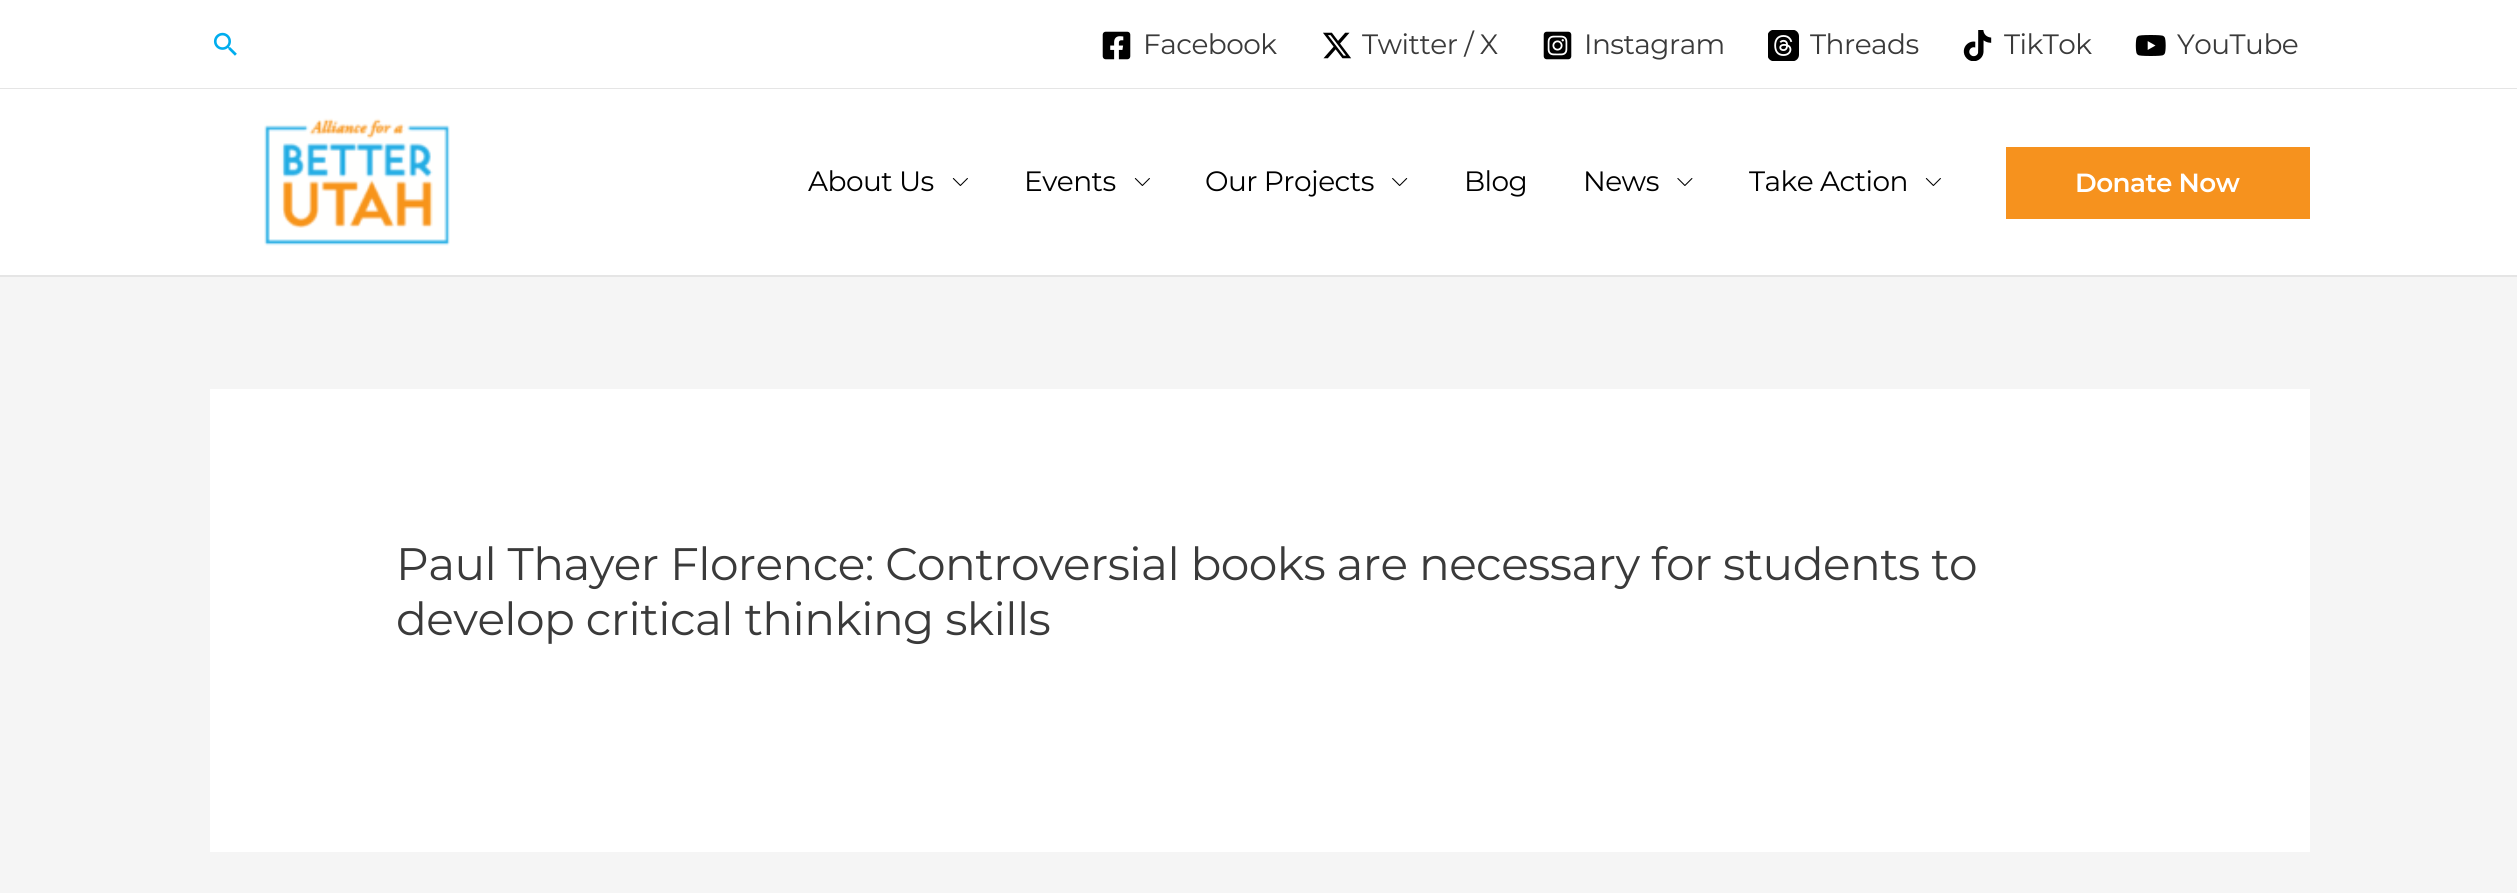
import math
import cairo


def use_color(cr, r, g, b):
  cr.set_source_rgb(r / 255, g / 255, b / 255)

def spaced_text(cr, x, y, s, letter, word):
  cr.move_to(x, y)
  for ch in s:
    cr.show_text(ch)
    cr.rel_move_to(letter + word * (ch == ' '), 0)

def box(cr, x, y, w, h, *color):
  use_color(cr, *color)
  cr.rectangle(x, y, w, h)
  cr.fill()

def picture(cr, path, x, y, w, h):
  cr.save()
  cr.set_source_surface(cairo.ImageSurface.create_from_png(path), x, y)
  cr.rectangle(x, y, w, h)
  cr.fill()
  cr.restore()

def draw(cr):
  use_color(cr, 245, 245, 245)
  cr.paint()
  box(cr, 0, 0, 2517, 88, 255, 255, 255)
  box(cr, 0, 88, 2517, 1, 229, 229, 229)
  picture(cr, "img_01.png", 213, 32, 24, 24)
  picture(cr, "img_02.png", 1102, 31, 29, 29)
  picture(cr, "img_03.png", 1323, 32, 29, 27)
  picture(cr, "img_04.png", 1543, 31, 29, 29)
  picture(cr, "img_05.png", 1768, 30, 31, 31)
  picture(cr, "img_06.png", 1963, 30, 29, 31)
  picture(cr, "img_07.png", 2135, 35, 31, 21)
  box(cr, 0, 89, 2517, 186, 255, 255, 255)
  box(cr, 0, 275, 2517, 2, 229, 229, 229)
  picture(cr, "img_08.png", 264, 118, 186, 128)
  picture(cr, "img_09.png", 952, 178, 16, 8)
  picture(cr, "img_09.png", 1134, 178, 16, 8)
  picture(cr, "img_10.png", 1392, 178, 16, 8)
  picture(cr, "img_11.png", 1677, 178, 16, 8)
  picture(cr, "img_09.png", 1925, 178, 16, 8)
  box(cr, 2006, 147, 304, 72, 246, 146, 30)
  box(cr, 210, 389, 2100, 463, 255, 255, 255)
  cr.select_font_face("Montserrat")
  cr.set_font_size(28)
  use_color(cr, 58, 58, 58)
  spaced_text(cr, 1143, 54, "Facebook", -0.53, 0)
  spaced_text(cr, 1362, 54, "Twitter / X", -0.53, 0)
  spaced_text(cr, 1584, 54, "Instagram", -0.53, 0)
  spaced_text(cr, 1810, 54, "Threads", -0.53, 0)
  spaced_text(cr, 2004, 54, "TikTok", -0.53, 0)
  spaced_text(cr, 2177, 54, "YouTube", -0.53, 0)
  use_color(cr, 0, 0, 0)
  spaced_text(cr, 808, 191, "About Us", -0.53, 0)
  spaced_text(cr, 1024, 191, "Events", -0.53, 0)
  spaced_text(cr, 1205, 191, "Our Projects", -0.53, 0)
  spaced_text(cr, 1464, 191, "Blog", -0.53, 0)
  spaced_text(cr, 1583, 191, "News", -0.53, 0)
  spaced_text(cr, 1749, 191, "Take Action", -0.53, 0)
  cr.select_font_face("Montserrat SemiBold")
  cr.set_font_size(26.25)
  use_color(cr, 255, 255, 255)
  spaced_text(cr, 2075, 192, "Donate Now", -0.53, 0)
  cr.select_font_face("Montserrat")
  cr.set_font_size(45.5)
  use_color(cr, 58, 58, 58)
  spaced_text(cr, 396, 580, "Paul Thayer Florence: Controversial books are necessary for students to", -0.53, 0)
  spaced_text(cr, 396, 635, "develop critical thinking skills", -0.53, 0)


surface = cairo.ImageSurface(cairo.FORMAT_RGB24, 2517, 893)
cr = cairo.Context(surface)
options = cairo.FontOptions()
options.set_hint_metrics(cairo.HINT_METRICS_OFF)
options.set_hint_style(cairo.HINT_STYLE_NONE)
cr.set_font_options(options)
cr.set_miter_limit(4)
draw(cr)
surface.write_to_png("out.png")
